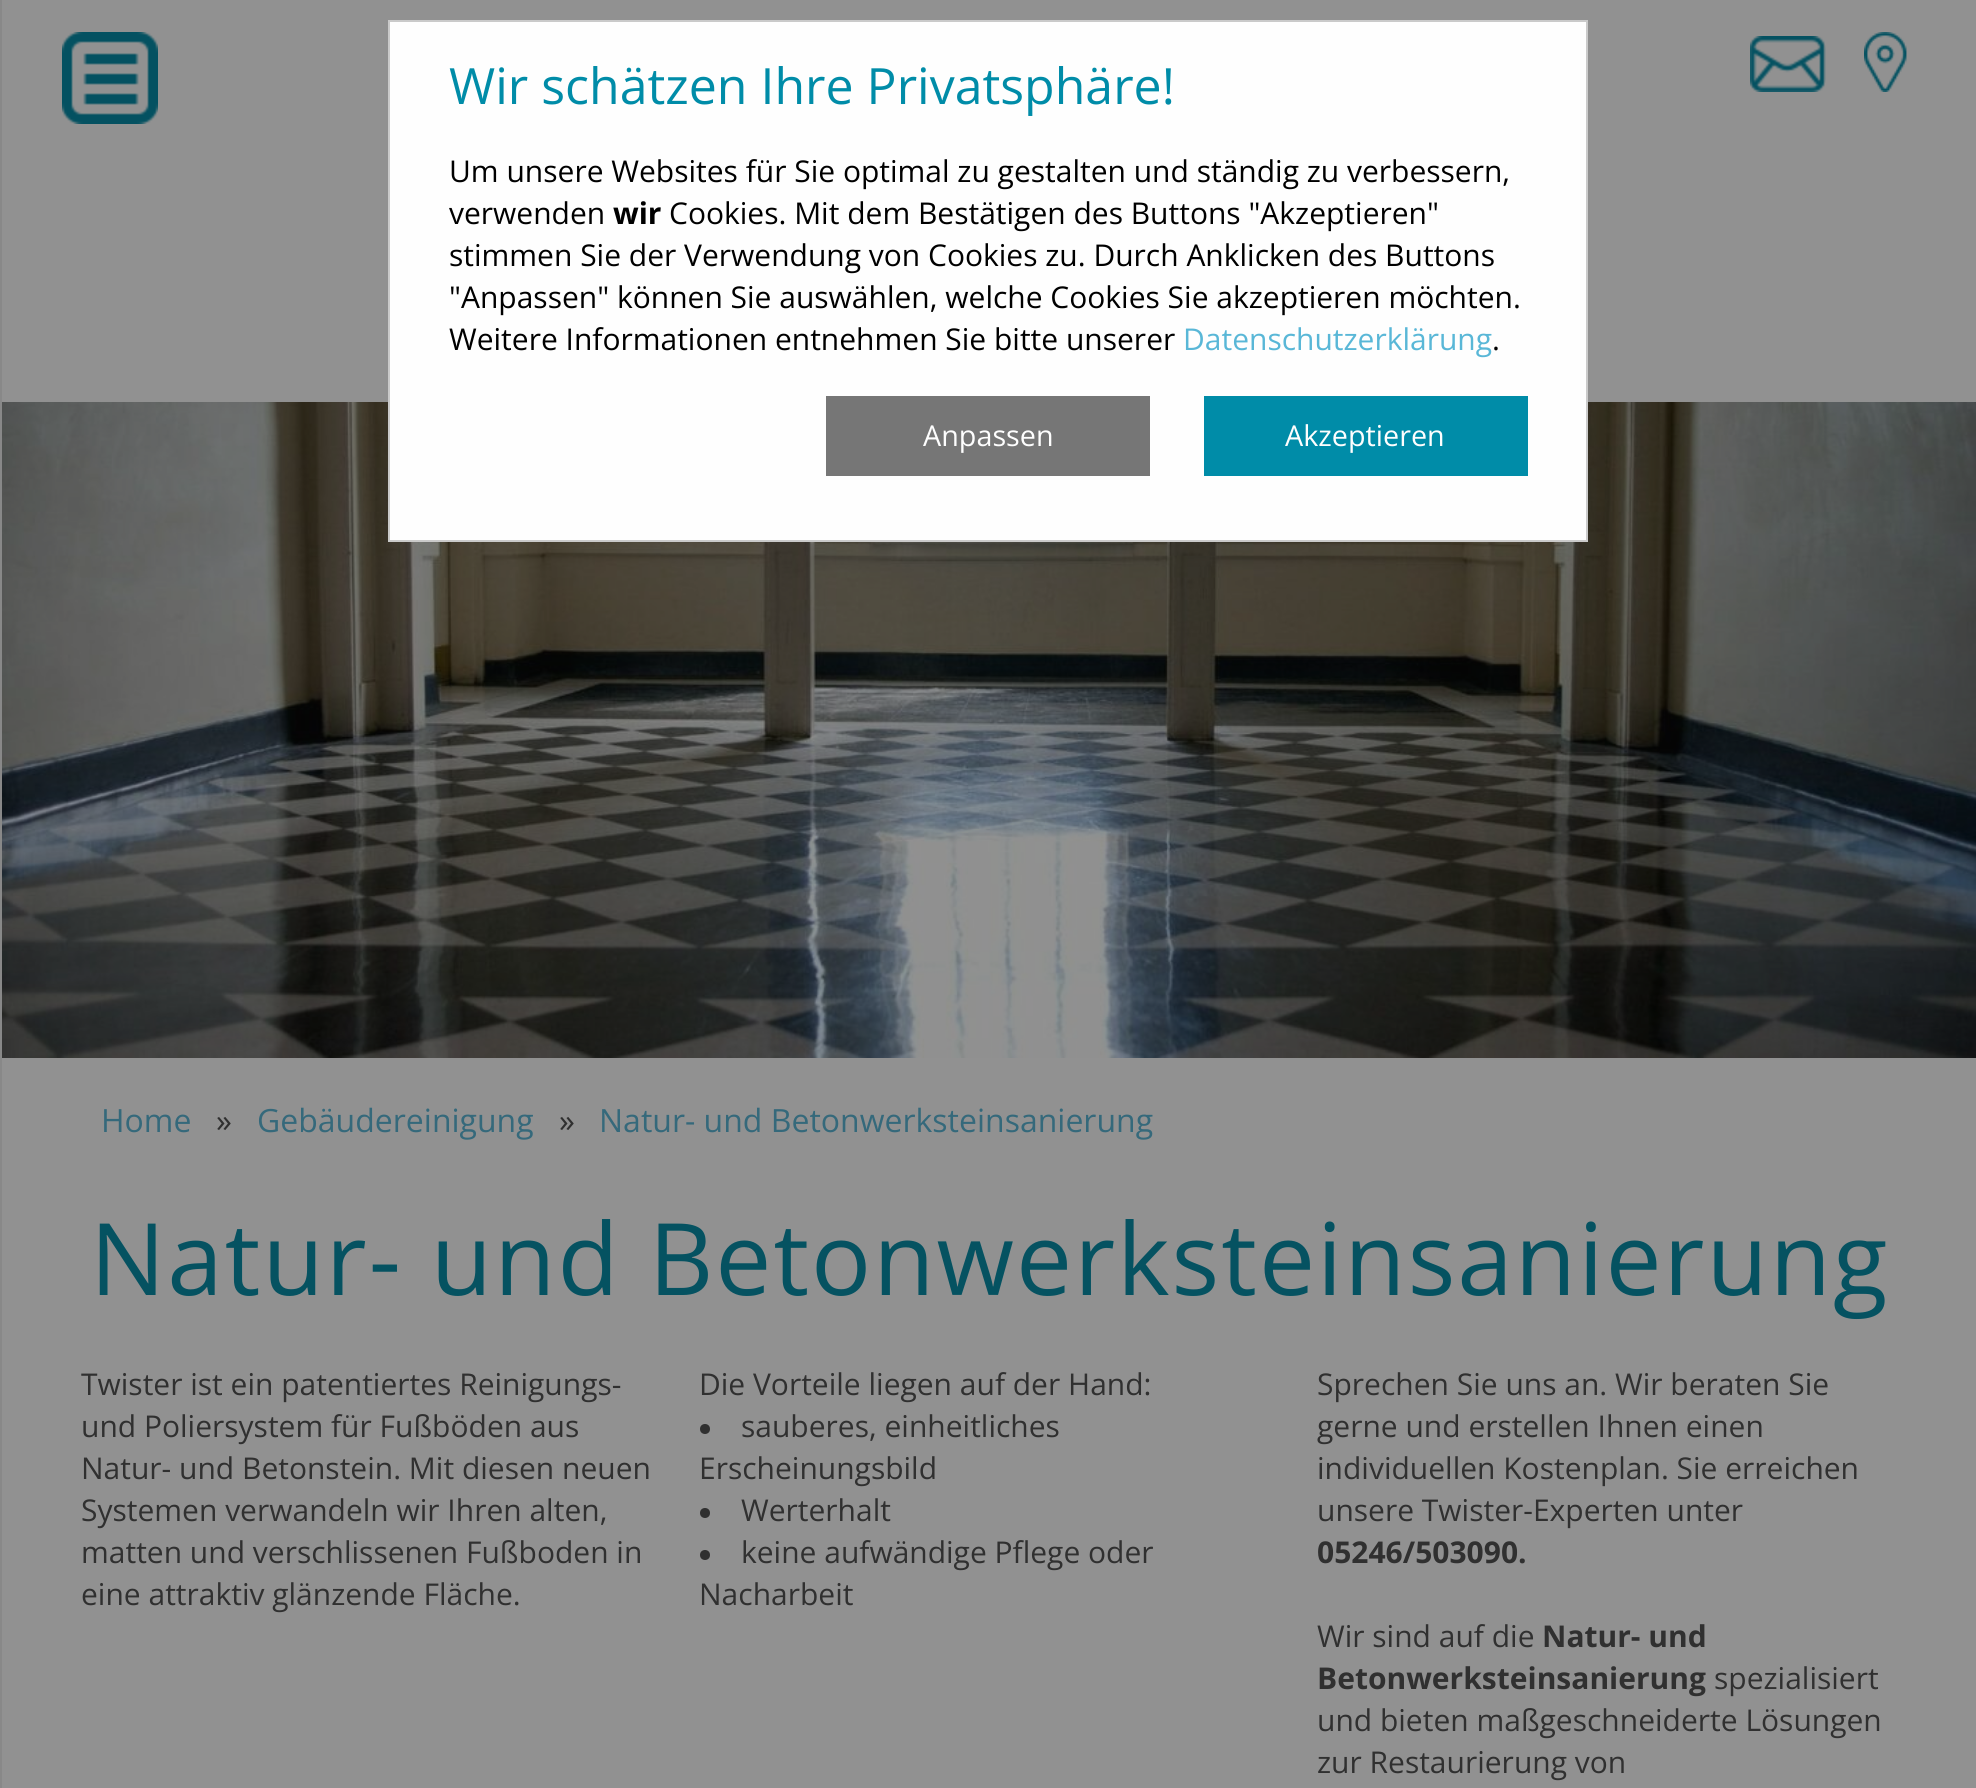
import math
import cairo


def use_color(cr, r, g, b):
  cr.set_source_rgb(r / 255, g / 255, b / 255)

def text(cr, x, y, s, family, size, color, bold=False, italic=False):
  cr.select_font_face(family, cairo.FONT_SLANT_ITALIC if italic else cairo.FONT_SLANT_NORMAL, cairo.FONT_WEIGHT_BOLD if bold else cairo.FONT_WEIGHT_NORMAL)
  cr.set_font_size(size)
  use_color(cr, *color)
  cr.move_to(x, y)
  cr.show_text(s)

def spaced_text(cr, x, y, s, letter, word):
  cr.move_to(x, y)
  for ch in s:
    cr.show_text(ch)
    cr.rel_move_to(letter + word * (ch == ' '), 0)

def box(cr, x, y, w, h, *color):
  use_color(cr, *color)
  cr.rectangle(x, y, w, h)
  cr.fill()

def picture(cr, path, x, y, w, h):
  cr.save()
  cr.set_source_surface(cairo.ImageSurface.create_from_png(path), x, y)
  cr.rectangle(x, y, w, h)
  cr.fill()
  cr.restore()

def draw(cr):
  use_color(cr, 145, 145, 145)
  cr.paint()
  picture(cr, "img_04.png", 2, 402, 1974, 656)
  use_color(cr, 254, 254, 254)
  cr.rectangle(389, 21, 1198, 520)
  cr.fill_preserve()
  use_color(cr, 202, 202, 202)
  cr.stroke()
  box(cr, 826, 396, 324, 80, 118, 118, 118)
  box(cr, 1204, 396, 324, 80, 0, 140, 168)
  box(cr, 0, 0, 2, 1788, 136, 136, 136)
  picture(cr, "img_01.png", 62, 32, 96, 92)
  picture(cr, "img_02.png", 1750, 36, 76, 56)
  picture(cr, "img_03.png", 1864, 32, 43, 60)
  use_color(cr, 48, 48, 48)
  cr.arc(705, 1429, 5, 0, 2 * math.pi)
  cr.fill()
  cr.arc(705, 1513, 5, 0, 2 * math.pi)
  cr.fill()
  cr.arc(705, 1555, 5, 0, 2 * math.pi)
  cr.fill()
  text(cr, 449, 104, "Wir schätzen Ihre Privatsphäre!", "Open Sans", 50, (0, 140, 168))
  text(cr, 449, 182, "Um unsere Websites für Sie optimal zu gestalten und ständig zu verbessern,", "Open Sans", 30, (0, 0, 0))
  text(cr, 449, 224, "verwenden", "Open Sans", 30, (0, 0, 0))
  text(cr, 613, 224, "wir", "Open Sans", 30, (0, 0, 0), bold=True)
  text(cr, 669, 224, "Cookies. Mit dem Bestätigen des Buttons \"Akzeptieren\"", "Open Sans", 30, (0, 0, 0))
  text(cr, 449, 266, "stimmen Sie der Verwendung von Cookies zu. Durch Anklicken des Buttons", "Open Sans", 30, (0, 0, 0))
  text(cr, 449, 308, "\"Anpassen\" können Sie auswählen, welche Cookies Sie akzeptieren möchten.", "Open Sans", 30, (0, 0, 0))
  text(cr, 449, 350, "Weitere Informationen entnehmen Sie bitte unserer", "Open Sans", 30, (0, 0, 0))
  text(cr, 1183, 350, "Datenschutzerklärung", "Open Sans", 30, (89, 183, 215))
  text(cr, 1492, 350, ".", "Open Sans", 30, (0, 0, 0))
  text(cr, 923, 446, "Anpassen", "Open Sans", 28.75, (254, 254, 254))
  text(cr, 1285, 446, "Akzeptieren", "Open Sans", 28.75, (254, 254, 254))
  text(cr, 101, 1132, "Home", "Open Sans", 32, (53, 105, 123))
  text(cr, 216, 1132, "»", "Open Sans", 32, (48, 48, 48))
  text(cr, 257, 1132, "Gebäudereinigung", "Open Sans", 32, (53, 105, 123))
  text(cr, 559, 1132, "»", "Open Sans", 32, (48, 48, 48))
  text(cr, 599, 1132, "Natur- und Betonwerksteinsanierung", "Open Sans", 32, (53, 105, 123))
  cr.set_font_size(100)
  use_color(cr, 5, 82, 97)
  spaced_text(cr, 90, 1295, "Natur- und Betonwerksteinsanierung", 2, 0)
  text(cr, 81, 1395, "Twister ist ein patentiertes Reinigungs-", "Open Sans", 30, (48, 48, 48))
  text(cr, 81, 1437, "und Poliersystem für Fußböden aus", "Open Sans", 30, (48, 48, 48))
  text(cr, 81, 1479, "Natur- und Betonstein. Mit diesen neuen", "Open Sans", 30, (48, 48, 48))
  text(cr, 81, 1521, "Systemen verwandeln wir Ihren alten,", "Open Sans", 30, (48, 48, 48))
  text(cr, 81, 1563, "matten und verschlissenen Fußboden in", "Open Sans", 30, (48, 48, 48))
  text(cr, 81, 1605, "eine attraktiv glänzende Fläche.", "Open Sans", 30, (48, 48, 48))
  text(cr, 699, 1395, "Die Vorteile liegen auf der Hand:", "Open Sans", 30, (48, 48, 48))
  text(cr, 741, 1437, "sauberes, einheitliches", "Open Sans", 30, (48, 48, 48))
  text(cr, 699, 1479, "Erscheinungsbild", "Open Sans", 30, (48, 48, 48))
  text(cr, 741, 1521, "Werterhalt", "Open Sans", 30, (48, 48, 48))
  text(cr, 741, 1563, "keine aufwändige Pflege oder", "Open Sans", 30, (48, 48, 48))
  text(cr, 699, 1605, "Nacharbeit", "Open Sans", 30, (48, 48, 48))
  text(cr, 1317, 1395, "Sprechen Sie uns an. Wir beraten Sie", "Open Sans", 30, (48, 48, 48))
  text(cr, 1317, 1437, "gerne und erstellen Ihnen einen", "Open Sans", 30, (48, 48, 48))
  text(cr, 1317, 1479, "individuellen Kostenplan. Sie erreichen", "Open Sans", 30, (48, 48, 48))
  text(cr, 1317, 1521, "unsere Twister-Experten unter", "Open Sans", 30, (48, 48, 48))
  text(cr, 1317, 1563, "05246/503090.", "Open Sans", 30, (48, 48, 48), bold=True)
  text(cr, 1317, 1647, "Wir sind auf die", "Open Sans", 30, (48, 48, 48))
  text(cr, 1542, 1647, "Natur- und", "Open Sans", 30, (48, 48, 48), bold=True)
  text(cr, 1317, 1689, "Betonwerksteinsanierung", "Open Sans", 30, (48, 48, 48), bold=True)
  text(cr, 1714, 1689, "spezialisiert", "Open Sans", 30, (48, 48, 48))
  text(cr, 1317, 1731, "und bieten maßgeschneiderte Lösungen", "Open Sans", 30, (48, 48, 48))
  text(cr, 1317, 1773, "zur Restaurierung von", "Open Sans", 30, (48, 48, 48))


surface = cairo.ImageSurface(cairo.FORMAT_RGB24, 1976, 1788)
cr = cairo.Context(surface)
options = cairo.FontOptions()
options.set_hint_metrics(cairo.HINT_METRICS_OFF)
options.set_hint_style(cairo.HINT_STYLE_NONE)
cr.set_font_options(options)
cr.set_miter_limit(4)
draw(cr)
surface.write_to_png("out.png")
